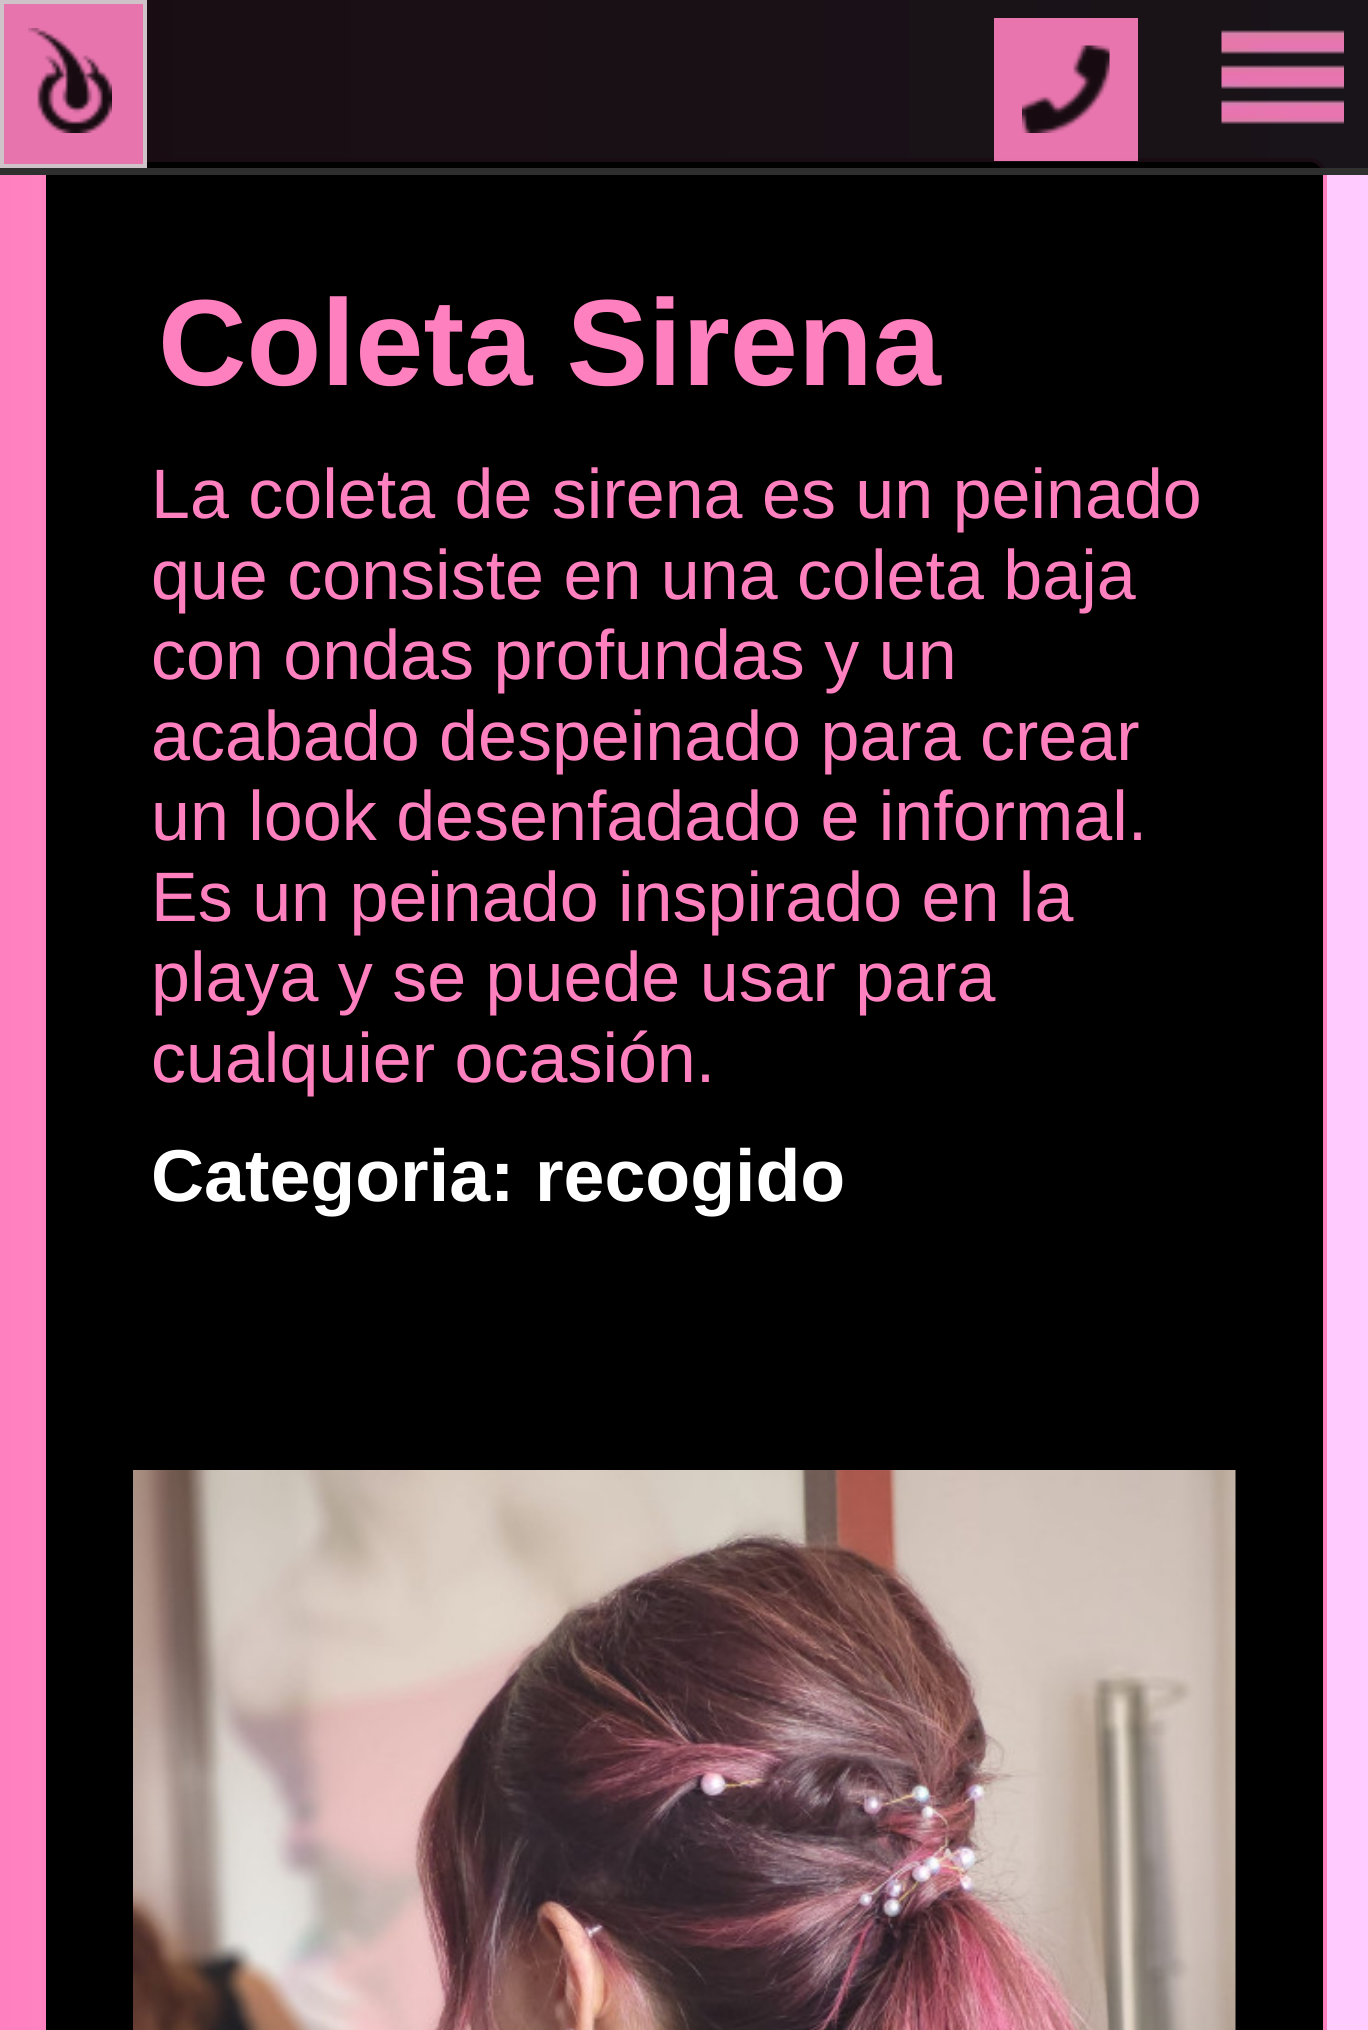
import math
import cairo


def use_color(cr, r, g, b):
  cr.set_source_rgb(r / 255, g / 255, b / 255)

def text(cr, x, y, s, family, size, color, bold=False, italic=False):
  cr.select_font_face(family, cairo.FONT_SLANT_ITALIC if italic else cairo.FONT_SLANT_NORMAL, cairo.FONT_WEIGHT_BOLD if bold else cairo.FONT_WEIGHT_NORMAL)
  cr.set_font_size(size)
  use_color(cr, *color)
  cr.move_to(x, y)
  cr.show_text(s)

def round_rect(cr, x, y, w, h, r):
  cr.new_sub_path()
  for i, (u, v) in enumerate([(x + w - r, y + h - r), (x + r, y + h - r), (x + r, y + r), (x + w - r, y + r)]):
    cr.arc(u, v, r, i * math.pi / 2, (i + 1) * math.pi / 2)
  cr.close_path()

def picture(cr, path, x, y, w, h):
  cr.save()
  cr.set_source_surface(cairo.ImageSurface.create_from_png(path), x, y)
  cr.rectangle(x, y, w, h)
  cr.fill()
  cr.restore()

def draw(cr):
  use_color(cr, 255, 255, 255)
  cr.paint()
  gradient = cairo.LinearGradient(0, 1568, 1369, 1568)
  gradient.add_color_stop_rgba(0, 1, 0.502, 0.749, 1)
  gradient.add_color_stop_rgba(1, 1, 0.8, 1, 1)
  cr.set_source(gradient)
  cr.rectangle(0, 0, 1368, 2030)
  cr.fill()
  use_color(cr, 0, 0, 0)
  round_rect(cr, 44, 160, 1281, 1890, 16)
  cr.fill_preserve()
  use_color(cr, 255, 128, 191)
  cr.set_line_width(4)
  cr.stroke()
  cr.set_source_rgba(0, 0, 0, 0.9)
  cr.rectangle(0, 0, 1368, 175)
  cr.fill()
  cr.set_source_rgba(0.2, 0.2, 0.2, 0.9)
  cr.rectangle(0, 168, 1368, 7)
  cr.fill()
  cr.set_source_rgba(1, 0.502, 0.749, 0.9)
  cr.rectangle(0, 0, 147, 168)
  cr.fill()
  cr.rectangle(2, 2, 143, 164)
  cr.set_source_rgba(0.8, 0.8, 0.8, 0.9)
  cr.stroke()
  picture(cr, "img_01.png", 28, 28, 84, 105)
  cr.set_source_rgba(1, 0.502, 0.749, 0.9)
  cr.rectangle(994, 18, 144, 143)
  cr.fill()
  picture(cr, "img_02.png", 1022, 45, 88, 88)
  picture(cr, "img_03.png", 1221, 30, 123, 94)
  picture(cr, "img_04.png", 133, 1470, 1103, 560)
  text(cr, 158, 385, "Coleta Sirena", "Liberation Sans", 122.5, (255, 128, 191), bold=True)
  text(cr, 151, 518, "La coleta de sirena es un peinado", "Liberation Sans", 70, (255, 128, 191))
  text(cr, 151, 599, "que consiste en una coleta baja", "Liberation Sans", 70, (255, 128, 191))
  text(cr, 151, 679, "con ondas profundas y un", "Liberation Sans", 70, (255, 128, 191))
  text(cr, 151, 760, "acabado despeinado para crear", "Liberation Sans", 70, (255, 128, 191))
  text(cr, 151, 840, "un look desenfadado e informal.", "Liberation Sans", 70, (255, 128, 191))
  text(cr, 151, 921, "Es un peinado inspirado en la", "Liberation Sans", 70, (255, 128, 191))
  text(cr, 151, 1001, "playa y se puede usar para", "Liberation Sans", 70, (255, 128, 191))
  text(cr, 151, 1082, "cualquier ocasión.", "Liberation Sans", 70, (255, 128, 191))
  text(cr, 151, 1201, "Categoria: recogido", "Liberation Sans", 73.5, (255, 255, 255), bold=True)


surface = cairo.ImageSurface(cairo.FORMAT_RGB24, 1368, 2030)
cr = cairo.Context(surface)
options = cairo.FontOptions()
options.set_hint_metrics(cairo.HINT_METRICS_OFF)
options.set_hint_style(cairo.HINT_STYLE_NONE)
cr.set_font_options(options)
cr.set_miter_limit(4)
draw(cr)
surface.write_to_png("out.png")
